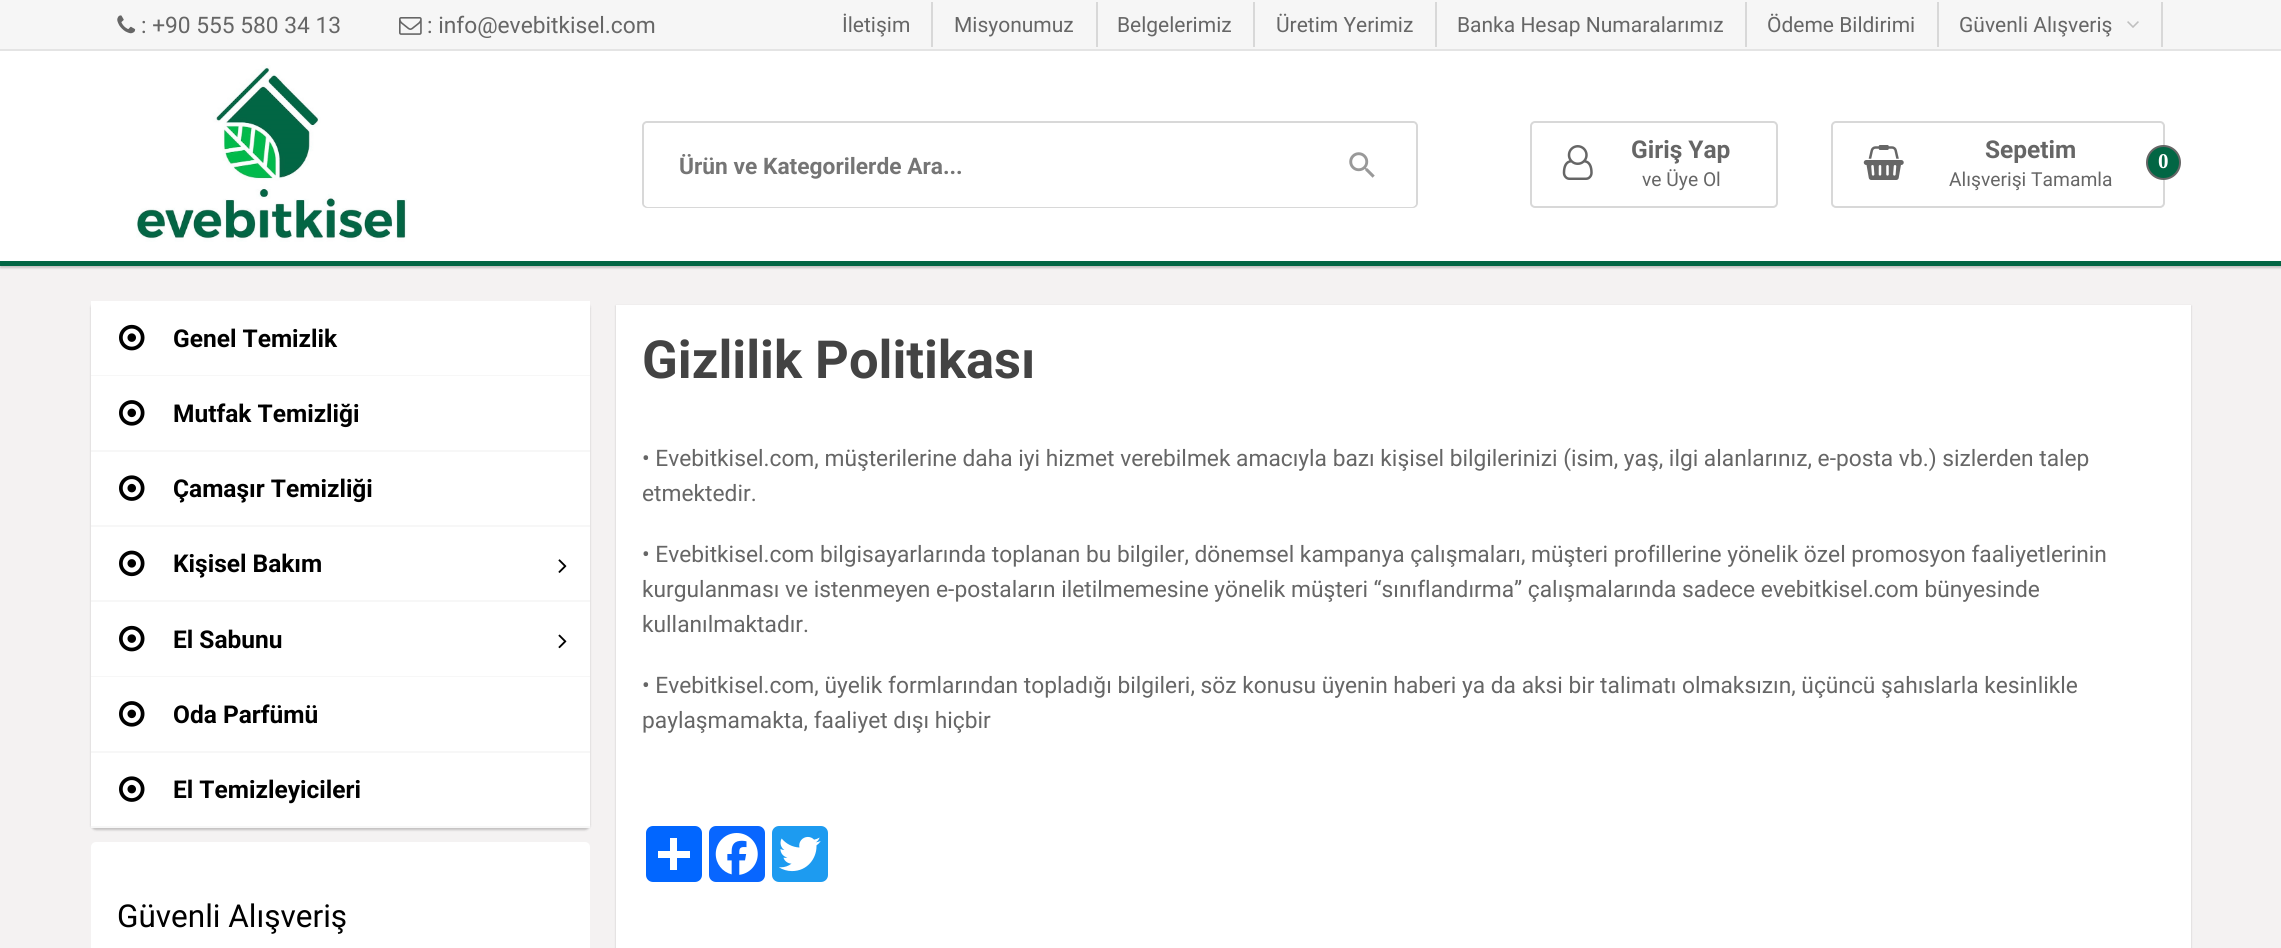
import math
import cairo


def use_color(cr, r, g, b):
  cr.set_source_rgb(r / 255, g / 255, b / 255)

def text(cr, x, y, s, family, size, color, bold=False, italic=False):
  cr.select_font_face(family, cairo.FONT_SLANT_ITALIC if italic else cairo.FONT_SLANT_NORMAL, cairo.FONT_WEIGHT_BOLD if bold else cairo.FONT_WEIGHT_NORMAL)
  cr.set_font_size(size)
  use_color(cr, *color)
  cr.move_to(x, y)
  cr.show_text(s)

def box(cr, x, y, w, h, *color):
  use_color(cr, *color)
  cr.rectangle(x, y, w, h)
  cr.fill()

def round_rect(cr, x, y, w, h, r):
  cr.new_sub_path()
  for i, (u, v) in enumerate([(x + w - r, y + h - r), (x + r, y + h - r), (x + r, y + r), (x + w - r, y + r)]):
    cr.arc(u, v, r, i * math.pi / 2, (i + 1) * math.pi / 2)
  cr.close_path()

def shadow(cr, x, y, w, h, r, blur, alpha):
  cr.push_group_with_content(cairo.CONTENT_ALPHA)
  cr.set_operator(cairo.OPERATOR_SOURCE)
  for i in range(15, -16, -2):
    e = blur * i / 6
    if min(w, h) + 2 * e > 0:
      cr.set_source_rgba(0, 0, 0, alpha * math.erfc((i - 1) / 8.5) / 2)
      round_rect(cr, x - e, y - e, w + 2 * e, h + 2 * e, max(0, min(r + e + blur * .6, min(w, h) / 2 + e)))
      cr.fill()
  cr.mask(cr.pop_group())

def picture(cr, path, x, y, w, h):
  cr.save()
  cr.set_source_surface(cairo.ImageSurface.create_from_png(path), x, y)
  cr.rectangle(x, y, w, h)
  cr.fill()
  cr.restore()

def draw(cr):
  use_color(cr, 244, 242, 242)
  cr.paint()
  use_color(cr, 0, 0, 0)
  shadow(cr, 0, 263, 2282, 5, 0, 1, 0.2)
  box(cr, 0, 51, 2281, 210, 255, 255, 255)
  box(cr, 0, 0, 2281, 49, 246, 246, 246)
  box(cr, 0, 49, 2281, 2, 228, 228, 228)
  picture(cr, "img_01.png", 117, 15, 19, 19)
  picture(cr, "img_02.png", 399, 17, 23, 18)
  box(cr, 931, 2, 2, 45, 216, 216, 216)
  box(cr, 1096, 2, 2, 45, 216, 216, 216)
  box(cr, 1253, 2, 2, 45, 216, 216, 216)
  box(cr, 1435, 2, 2, 45, 216, 216, 216)
  box(cr, 1745, 2, 2, 45, 216, 216, 216)
  box(cr, 1937, 2, 2, 45, 216, 216, 216)
  box(cr, 2161, 2, 2, 45, 216, 216, 216)
  picture(cr, "img_03.png", 2127, 21, 12, 7)
  picture(cr, "img_04.png", 136, 65, 271, 177)
  round_rect(cr, 643, 122, 774, 85, 4)
  cr.stroke()
  use_color(cr, 255, 255, 255)
  round_rect(cr, 644, 123, 772, 84, 4)
  cr.fill()
  picture(cr, "img_05.png", 1349, 152, 26, 26)
  round_rect(cr, 1531, 122, 246, 85, 4)
  use_color(cr, 216, 216, 216)
  cr.stroke()
  picture(cr, "img_06.png", 1562, 145, 31, 35)
  round_rect(cr, 1832, 122, 332, 85, 4)
  cr.stroke()
  picture(cr, "img_07.png", 1863, 145, 41, 35)
  use_color(cr, 2, 102, 68)
  cr.arc(2163.5, 162.5, 16.5, 0, 2 * math.pi)
  cr.fill_preserve()
  use_color(cr, 102, 102, 102)
  cr.stroke()
  box(cr, 0, 261, 2281, 5, 2, 102, 68)
  use_color(cr, 0, 0, 0)
  shadow(cr, 91, 303, 499, 527, 5, 1, 0.2)
  box(cr, 91, 452, 499, 224, 255, 255, 255)
  box(cr, 91, 375, 499, 1, 247, 247, 247)
  box(cr, 91, 301, 499, 74, 255, 255, 255)
  picture(cr, "img_08.png", 119, 324, 26, 27)
  box(cr, 91, 450, 499, 2, 247, 247, 247)
  box(cr, 91, 376, 499, 74, 255, 255, 255)
  picture(cr, "img_09.png", 119, 400, 26, 26)
  box(cr, 91, 525, 499, 2, 247, 247, 247)
  picture(cr, "img_10.png", 119, 475, 26, 26)
  box(cr, 91, 600, 499, 2, 247, 247, 247)
  picture(cr, "img_11.png", 119, 550, 26, 27)
  picture(cr, "img_12.png", 558, 559, 9, 14)
  box(cr, 91, 676, 499, 1, 247, 247, 247)
  picture(cr, "img_08.png", 119, 625, 26, 27)
  picture(cr, "img_13.png", 558, 634, 9, 15)
  box(cr, 91, 751, 499, 2, 247, 247, 247)
  box(cr, 91, 677, 499, 74, 255, 255, 255)
  picture(cr, "img_09.png", 119, 701, 26, 26)
  box(cr, 91, 826, 499, 2, 247, 247, 247)
  box(cr, 91, 753, 499, 73, 255, 255, 255)
  picture(cr, "img_10.png", 119, 776, 26, 26)
  round_rect(cr, 91, 842, 499, 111, 5)
  cr.fill()
  use_color(cr, 0, 0, 0)
  shadow(cr, 616, 306, 1575, 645, 0, 1, 0.2)
  box(cr, 616, 305, 1575, 643, 255, 255, 255)
  use_color(cr, 1, 102, 255)
  round_rect(cr, 646, 826, 56, 56, 7)
  cr.fill()
  box(cr, 670, 838, 7, 32, 255, 255, 255)
  box(cr, 658, 851, 32, 7, 255, 255, 255)
  use_color(cr, 8, 102, 255)
  round_rect(cr, 709, 826, 56, 56, 7)
  cr.fill()
  picture(cr, "img_14.png", 715, 833, 43, 42)
  use_color(cr, 29, 155, 240)
  round_rect(cr, 772, 826, 56, 56, 7)
  cr.fill()
  picture(cr, "img_15.png", 779, 836, 42, 36)
  text(cr, 141, 33, ": +90 555 580 34 13", "Roboto", 22.75, (102, 102, 102))
  text(cr, 427, 33, ": info@evebitkisel.com", "Roboto", 22.75, (102, 102, 102))
  text(cr, 842, 32, "İletişim", "Roboto", 21, (102, 102, 102))
  text(cr, 954, 32, "Misyonumuz", "Roboto", 21, (102, 102, 102))
  text(cr, 1117, 32, "Belgelerimiz", "Roboto", 21, (102, 102, 102))
  text(cr, 1276, 32, "Üretim Yerimiz", "Roboto", 21, (102, 102, 102))
  text(cr, 1457, 32, "Banka Hesap Numaralarımız", "Roboto", 21, (102, 102, 102))
  text(cr, 1767, 32, "Ödeme Bildirimi", "Roboto", 21, (102, 102, 102))
  text(cr, 1959, 32, "Güvenli Alışveriş", "Roboto", 21, (102, 102, 102))
  text(cr, 679, 174, "Ürün ve Kategorilerde Ara...", "Roboto", 22.75, (117, 117, 117), bold=True)
  text(cr, 1631, 158, "Giriş Yap", "Roboto", 24.5, (102, 102, 102), bold=True)
  text(cr, 1642, 186, "ve Üye Ol", "Roboto", 19.25, (102, 102, 102))
  text(cr, 1985, 158, "Sepetim", "Roboto", 24.5, (102, 102, 102), bold=True)
  text(cr, 1949, 186, "Alışverişi Tamamla", "Roboto", 19.25, (102, 102, 102))
  text(cr, 2158, 168, "0", "Liberation Serif", 21, (255, 255, 255), bold=True)
  text(cr, 173, 347, "Genel Temizlik", "Roboto", 24.5, (0, 0, 0), bold=True)
  text(cr, 173, 422, "Mutfak Temizliği", "Roboto", 24.5, (0, 0, 0), bold=True)
  text(cr, 173, 497, "Çamaşır Temizliği", "Roboto", 24.5, (0, 0, 0), bold=True)
  text(cr, 173, 572, "Kişisel Bakım", "Roboto", 24.5, (0, 0, 0), bold=True)
  text(cr, 173, 648, "El Sabunu", "Roboto", 24.5, (0, 0, 0), bold=True)
  text(cr, 173, 723, "Oda Parfümü", "Roboto", 24.5, (0, 0, 0), bold=True)
  text(cr, 173, 798, "El Temizleyicileri", "Roboto", 24.5, (0, 0, 0), bold=True)
  text(cr, 117, 927, "Güvenli Alışveriş", "Roboto", 31.5, (0, 0, 0))
  text(cr, 642, 378, "Gizlilik Politikası", "Roboto", 52.5, (67, 67, 67), bold=True)
  text(cr, 642, 466, "• Evebitkisel.com, müşterilerine daha iyi hizmet verebilmek amacıyla bazı kişisel bilgilerinizi (isim, yaş, ilgi alanlarınız, e-posta vb.) sizlerden talep", "Roboto", 22.75, (102, 102, 102))
  text(cr, 642, 501, "etmektedir.", "Roboto", 22.75, (102, 102, 102))
  text(cr, 642, 562, "• Evebitkisel.com bilgisayarlarında toplanan bu bilgiler, dönemsel kampanya çalışmaları, müşteri profillerine yönelik özel promosyon faaliyetlerinin", "Roboto", 22.75, (102, 102, 102))
  text(cr, 642, 597, "kurgulanması ve istenmeyen e-postaların iletilmemesine yönelik müşteri “sınıflandırma” çalışmalarında sadece evebitkisel.com bünyesinde", "Roboto", 22.75, (102, 102, 102))
  text(cr, 642, 632, "kullanılmaktadır.", "Roboto", 22.75, (102, 102, 102))
  text(cr, 642, 693, "• Evebitkisel.com, üyelik formlarından topladığı bilgileri, söz konusu üyenin haberi ya da aksi bir talimatı olmaksızın, üçüncü şahıslarla kesinlikle", "Roboto", 22.75, (102, 102, 102))
  text(cr, 642, 728, "paylaşmamakta, faaliyet dışı hiçbir", "Roboto", 22.75, (102, 102, 102))


surface = cairo.ImageSurface(cairo.FORMAT_RGB24, 2281, 948)
cr = cairo.Context(surface)
options = cairo.FontOptions()
options.set_hint_metrics(cairo.HINT_METRICS_OFF)
options.set_hint_style(cairo.HINT_STYLE_NONE)
cr.set_font_options(options)
cr.set_miter_limit(4)
draw(cr)
surface.write_to_png("out.png")
